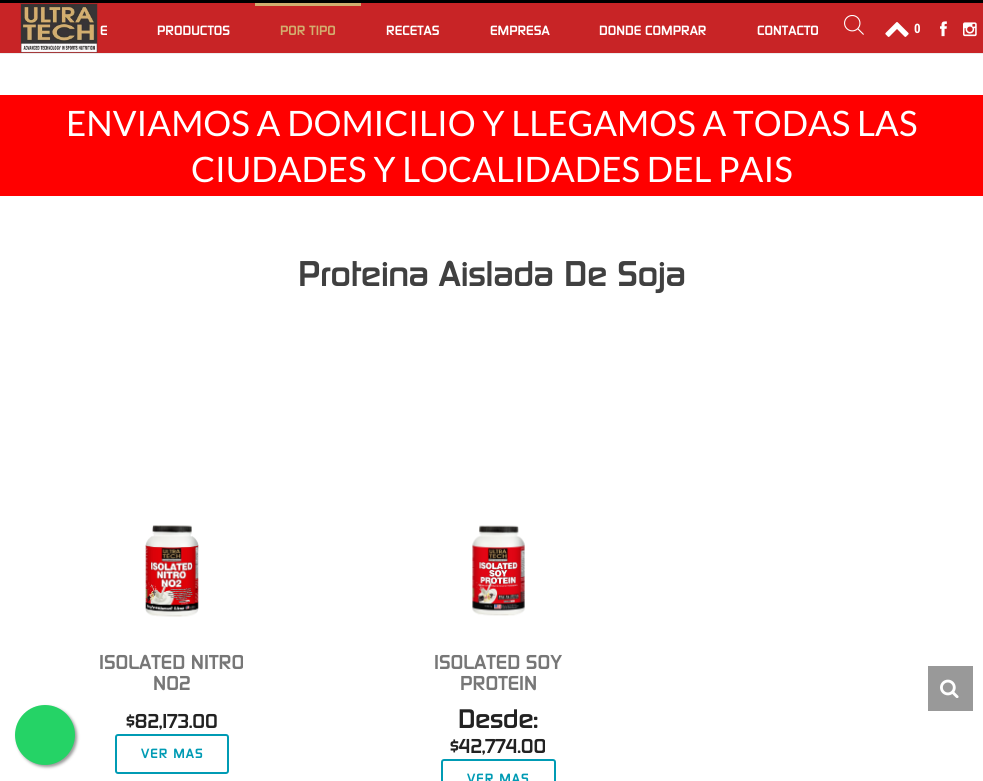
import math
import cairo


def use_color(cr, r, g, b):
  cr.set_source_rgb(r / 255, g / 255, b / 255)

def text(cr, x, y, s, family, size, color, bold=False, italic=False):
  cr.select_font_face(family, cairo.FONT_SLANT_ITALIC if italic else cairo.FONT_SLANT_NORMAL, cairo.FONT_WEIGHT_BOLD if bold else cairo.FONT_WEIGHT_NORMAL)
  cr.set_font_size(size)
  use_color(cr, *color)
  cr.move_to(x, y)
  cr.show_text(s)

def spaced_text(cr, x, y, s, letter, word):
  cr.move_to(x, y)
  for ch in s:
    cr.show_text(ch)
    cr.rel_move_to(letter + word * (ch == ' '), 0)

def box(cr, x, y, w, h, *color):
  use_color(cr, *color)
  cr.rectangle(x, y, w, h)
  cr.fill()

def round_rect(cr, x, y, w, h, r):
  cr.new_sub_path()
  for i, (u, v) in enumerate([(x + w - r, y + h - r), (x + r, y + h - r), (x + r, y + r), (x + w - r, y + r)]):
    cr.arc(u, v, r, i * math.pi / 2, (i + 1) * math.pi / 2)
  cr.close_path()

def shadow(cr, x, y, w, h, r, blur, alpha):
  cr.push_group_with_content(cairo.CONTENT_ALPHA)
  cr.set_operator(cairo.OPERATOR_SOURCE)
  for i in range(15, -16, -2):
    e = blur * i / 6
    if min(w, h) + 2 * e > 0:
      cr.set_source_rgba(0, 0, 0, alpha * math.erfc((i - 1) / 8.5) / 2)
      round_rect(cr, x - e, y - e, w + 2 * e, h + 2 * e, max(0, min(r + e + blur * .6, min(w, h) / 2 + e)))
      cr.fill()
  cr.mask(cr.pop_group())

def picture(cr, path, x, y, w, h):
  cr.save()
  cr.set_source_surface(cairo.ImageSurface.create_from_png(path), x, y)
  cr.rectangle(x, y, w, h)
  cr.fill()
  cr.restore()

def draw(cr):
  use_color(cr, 255, 255, 255)
  cr.paint()
  box(cr, 0, 0, 983, 3, 0, 0, 0)
  box(cr, 0, 53, 983, 1, 237, 237, 237)
  box(cr, 0, 3, 983, 50, 200, 36, 38)
  picture(cr, "img_01.png", 20, 3, 78, 50)
  box(cr, 255, 3, 106, 3, 211, 174, 111)
  picture(cr, "img_02.png", 844, 15, 20, 20)
  picture(cr, "img_03.png", 885, 22, 24, 15)
  picture(cr, "img_04.png", 940, 21, 7, 16)
  picture(cr, "img_05.png", 963, 22, 14, 15)
  picture(cr, "img_06.png", 145, 525, 54, 92)
  round_rect(cr, 116, 735, 112, 38, 2)
  use_color(cr, 0, 155, 180)
  cr.stroke()
  picture(cr, "img_07.png", 472, 525, 53, 91)
  round_rect(cr, 442, 760, 113, 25, 2)
  cr.stroke()
  box(cr, 0, 95, 983, 101, 255, 0, 0)
  box(cr, 928, 666, 45, 45, 153, 153, 153)
  picture(cr, "img_08.png", 940, 679, 19, 19)
  use_color(cr, 153, 153, 153)
  shadow(cr, 17, 707, 60, 60, 30, 1.5, 1)
  use_color(cr, 37, 211, 102)
  cr.arc(45, 735, 30, 0, 2 * math.pi)
  cr.fill()
  text(cr, 100, 35, "E", "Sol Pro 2", 12, (255, 255, 255), bold=True)
  text(cr, 157, 35, "PRODUCTOS", "Sol Pro 2", 12, (255, 255, 255), bold=True)
  text(cr, 280, 35, "POR TIPO", "Sol Pro 2", 12, (211, 174, 111), bold=True)
  text(cr, 386, 35, "RECETAS", "Sol Pro 2", 12, (255, 255, 255), bold=True)
  text(cr, 490, 35, "EMPRESA", "Sol Pro 2", 12, (255, 255, 255), bold=True)
  text(cr, 599, 35, "DONDE COMPRAR", "Sol Pro 2", 12, (255, 255, 255), bold=True)
  text(cr, 757, 35, "CONTACTO", "Sol Pro 2", 12, (255, 255, 255), bold=True)
  text(cr, 914, 33, "0", "Roboto Condensed", 13, (255, 255, 255), bold=True)
  text(cr, 298, 286, "Proteina Aislada De Soja", "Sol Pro", 32, (64, 64, 64), bold=True)
  text(cr, 99, 669, "ISOLATED NITRO", "Sol Pro 2", 18, (119, 119, 119), bold=True)
  text(cr, 153, 690, "NO2", "Sol Pro 2", 18, (119, 119, 119), bold=True)
  text(cr, 126, 728, "$82,173.00", "Sol Pro 2", 18, (34, 34, 34), bold=True)
  cr.set_font_size(12)
  use_color(cr, 0, 155, 180)
  spaced_text(cr, 141, 758, "VER MAS", 1, 0)
  text(cr, 434, 669, "ISOLATED SOY", "Sol Pro 2", 18, (119, 119, 119), bold=True)
  text(cr, 460, 690, "PROTEIN", "Sol Pro 2", 18, (119, 119, 119), bold=True)
  text(cr, 458, 728, "Desde:", "Sol Pro 2", 24, (34, 34, 34), bold=True)
  text(cr, 450, 753, "$42,774.00", "Sol Pro 2", 18, (34, 34, 34), bold=True)
  cr.set_font_size(12)
  use_color(cr, 0, 155, 180)
  spaced_text(cr, 467, 783, "VER MAS", 1, 0)
  text(cr, 66, 136, "ENVIAMOS A DOMICILIO Y LLEGAMOS A TODAS LAS", "Lato", 35, (255, 255, 255))
  text(cr, 191, 182, "CIUDADES Y LOCALIDADES DEL PAIS", "Lato", 35, (255, 255, 255))


surface = cairo.ImageSurface(cairo.FORMAT_RGB24, 983, 781)
cr = cairo.Context(surface)
options = cairo.FontOptions()
options.set_hint_metrics(cairo.HINT_METRICS_OFF)
options.set_hint_style(cairo.HINT_STYLE_NONE)
cr.set_font_options(options)
cr.set_miter_limit(4)
draw(cr)
surface.write_to_png("out.png")
